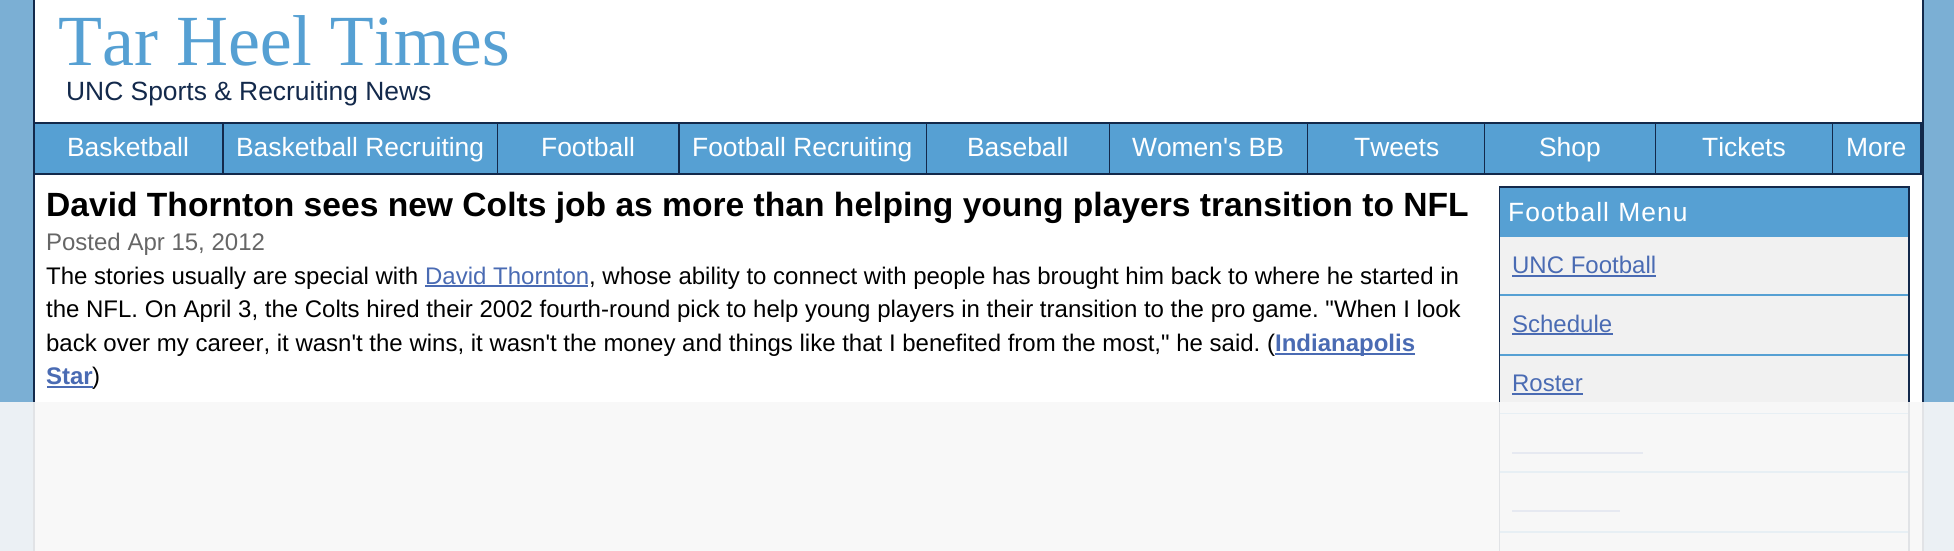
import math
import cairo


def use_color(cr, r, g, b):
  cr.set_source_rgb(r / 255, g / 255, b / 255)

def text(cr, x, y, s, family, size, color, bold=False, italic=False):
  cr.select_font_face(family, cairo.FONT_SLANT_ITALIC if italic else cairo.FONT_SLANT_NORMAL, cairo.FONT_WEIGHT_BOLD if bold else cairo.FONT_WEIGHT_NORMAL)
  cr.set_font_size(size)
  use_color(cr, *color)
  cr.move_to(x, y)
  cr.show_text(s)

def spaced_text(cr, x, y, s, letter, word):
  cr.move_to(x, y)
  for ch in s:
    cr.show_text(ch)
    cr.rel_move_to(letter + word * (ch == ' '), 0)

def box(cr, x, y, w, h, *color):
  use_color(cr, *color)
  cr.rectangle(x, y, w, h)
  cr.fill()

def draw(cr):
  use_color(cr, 123, 175, 212)
  cr.paint()
  box(cr, 35, 0, 1887, 551, 255, 255, 255)
  box(cr, 1922, 0, 2, 551, 19, 41, 75)
  box(cr, 33, 0, 2, 551, 19, 41, 75)
  box(cr, 35, 124, 891, 49, 86, 160, 211)
  box(cr, 35, 122, 1887, 2, 19, 41, 75)
  box(cr, 222, 122, 2, 52, 19, 41, 75)
  box(cr, 35, 173, 189, 2, 19, 41, 75)
  box(cr, 497, 122, 1, 52, 19, 41, 75)
  box(cr, 224, 173, 274, 2, 19, 41, 75)
  box(cr, 678, 122, 2, 52, 19, 41, 75)
  box(cr, 498, 173, 182, 2, 19, 41, 75)
  box(cr, 926, 122, 1, 52, 19, 41, 75)
  box(cr, 680, 173, 247, 2, 19, 41, 75)
  box(cr, 927, 124, 182, 49, 86, 160, 211)
  box(cr, 1109, 122, 1, 52, 19, 41, 75)
  box(cr, 927, 173, 183, 2, 19, 41, 75)
  box(cr, 1110, 124, 197, 49, 86, 160, 211)
  box(cr, 1307, 122, 1, 52, 19, 41, 75)
  box(cr, 1110, 173, 198, 2, 19, 41, 75)
  box(cr, 1308, 124, 176, 49, 86, 160, 211)
  box(cr, 1484, 122, 1, 52, 19, 41, 75)
  box(cr, 1308, 173, 177, 2, 19, 41, 75)
  box(cr, 1485, 124, 170, 49, 86, 160, 211)
  box(cr, 1655, 122, 1, 52, 19, 41, 75)
  box(cr, 1485, 173, 171, 2, 19, 41, 75)
  box(cr, 1656, 124, 176, 49, 86, 160, 211)
  box(cr, 1832, 122, 1, 52, 19, 41, 75)
  box(cr, 1656, 173, 177, 2, 19, 41, 75)
  box(cr, 1833, 124, 87, 49, 86, 160, 211)
  box(cr, 1920, 122, 2, 52, 19, 41, 75)
  box(cr, 1833, 173, 89, 2, 19, 41, 75)
  box(cr, 425, 285, 163, 2, 74, 107, 179)
  box(cr, 1275, 353, 140, 2, 74, 107, 179)
  box(cr, 47, 386, 46, 2, 74, 107, 179)
  cr.rectangle(1500, 187, 409, 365)
  use_color(cr, 19, 41, 75)
  cr.stroke()
  box(cr, 1500, 188, 408, 49, 86, 160, 211)
  box(cr, 1500, 237, 408, 57, 241, 241, 241)
  box(cr, 1500, 294, 408, 2, 86, 160, 211)
  box(cr, 1512, 275, 144, 2, 74, 107, 179)
  box(cr, 1500, 296, 408, 58, 241, 241, 241)
  box(cr, 1500, 354, 408, 2, 86, 160, 211)
  box(cr, 1512, 333, 101, 2, 74, 107, 179)
  box(cr, 1500, 356, 408, 57, 241, 241, 241)
  box(cr, 1500, 413, 408, 1, 86, 160, 211)
  box(cr, 1512, 393, 71, 2, 74, 107, 179)
  box(cr, 1500, 414, 408, 57, 241, 241, 241)
  box(cr, 1500, 471, 408, 2, 86, 160, 211)
  box(cr, 1512, 452, 131, 2, 74, 107, 179)
  box(cr, 1500, 473, 408, 58, 241, 241, 241)
  box(cr, 1500, 531, 408, 2, 86, 160, 211)
  box(cr, 1512, 510, 108, 2, 74, 107, 179)
  box(cr, 1500, 533, 408, 18, 241, 241, 241)
  cr.set_source_rgba(0.969, 0.969, 0.969, 0.9)
  cr.rectangle(0, 402, 1954, 149)
  cr.fill()
  text(cr, 58, 65, "Tar Heel Times", "Liberation Serif", 72, (86, 160, 211))
  text(cr, 66, 100, "UNC Sports & Recruiting News", "Liberation Sans", 26.4, (19, 41, 75))
  text(cr, 67, 156, "Basketball", "Liberation Sans", 26.4, (255, 255, 255))
  text(cr, 236, 156, "Basketball Recruiting", "Liberation Sans", 26.4, (255, 255, 255))
  text(cr, 541, 156, "Football", "Liberation Sans", 26.4, (255, 255, 255))
  text(cr, 692, 156, "Football Recruiting", "Liberation Sans", 26.4, (255, 255, 255))
  text(cr, 967, 156, "Baseball", "Liberation Sans", 26.4, (255, 255, 255))
  text(cr, 1132, 156, "Women's BB", "Liberation Sans", 26.4, (255, 255, 255))
  text(cr, 1354, 156, "Tweets", "Liberation Sans", 26.4, (255, 255, 255))
  text(cr, 1539, 156, "Shop", "Liberation Sans", 26.4, (255, 255, 255))
  text(cr, 1702, 156, "Tickets", "Liberation Sans", 26.4, (255, 255, 255))
  text(cr, 1846, 156, "More", "Liberation Sans", 26.4, (255, 255, 255))
  text(cr, 46, 216, "David Thornton sees new Colts job as more than helping young players transition to NFL", "Liberation Sans", 33.6, (0, 0, 0), bold=True)
  text(cr, 46, 250, "Posted Apr 15, 2012", "Liberation Sans", 24, (102, 102, 102))
  text(cr, 46, 284, "The stories usually are special with", "Liberation Sans", 24, (0, 0, 0))
  text(cr, 425, 284, "David Thornton", "Liberation Sans", 24, (74, 107, 179))
  text(cr, 589, 284, ", whose ability to connect with people has brought him back to where he started in", "Liberation Sans", 24, (0, 0, 0))
  text(cr, 46, 317, "the NFL. On April 3, the Colts hired their 2002 fourth-round pick to help young players in their transition to the pro game. \"When I look", "Liberation Sans", 24, (0, 0, 0))
  text(cr, 46, 351, "back over my career, it wasn't the wins, it wasn't the money and things like that I benefited from the most,\" he said. (", "Liberation Sans", 24, (0, 0, 0))
  text(cr, 1275, 351, "Indianapolis", "Liberation Sans", 24, (74, 107, 179), bold=True)
  text(cr, 46, 384, "Star", "Liberation Sans", 24, (74, 107, 179), bold=True)
  text(cr, 92, 384, ")", "Liberation Sans", 24, (0, 0, 0))
  cr.set_font_size(26.4)
  use_color(cr, 255, 255, 255)
  spaced_text(cr, 1508, 221, "Football Menu", 1, 0)
  text(cr, 1512, 273, "UNC Football", "Liberation Sans", 24, (74, 107, 179))
  text(cr, 1512, 332, "Schedule", "Liberation Sans", 24, (74, 107, 179))
  text(cr, 1512, 391, "Roster", "Liberation Sans", 24, (74, 107, 179))


surface = cairo.ImageSurface(cairo.FORMAT_RGB24, 1954, 551)
cr = cairo.Context(surface)
options = cairo.FontOptions()
options.set_hint_metrics(cairo.HINT_METRICS_OFF)
options.set_hint_style(cairo.HINT_STYLE_NONE)
cr.set_font_options(options)
cr.set_miter_limit(4)
draw(cr)
surface.write_to_png("out.png")
